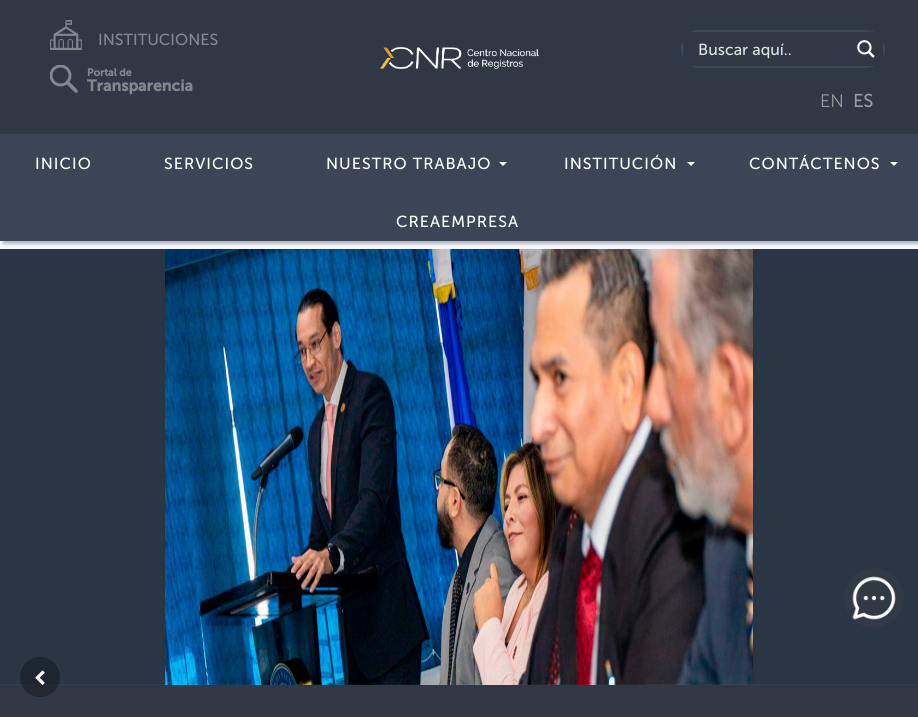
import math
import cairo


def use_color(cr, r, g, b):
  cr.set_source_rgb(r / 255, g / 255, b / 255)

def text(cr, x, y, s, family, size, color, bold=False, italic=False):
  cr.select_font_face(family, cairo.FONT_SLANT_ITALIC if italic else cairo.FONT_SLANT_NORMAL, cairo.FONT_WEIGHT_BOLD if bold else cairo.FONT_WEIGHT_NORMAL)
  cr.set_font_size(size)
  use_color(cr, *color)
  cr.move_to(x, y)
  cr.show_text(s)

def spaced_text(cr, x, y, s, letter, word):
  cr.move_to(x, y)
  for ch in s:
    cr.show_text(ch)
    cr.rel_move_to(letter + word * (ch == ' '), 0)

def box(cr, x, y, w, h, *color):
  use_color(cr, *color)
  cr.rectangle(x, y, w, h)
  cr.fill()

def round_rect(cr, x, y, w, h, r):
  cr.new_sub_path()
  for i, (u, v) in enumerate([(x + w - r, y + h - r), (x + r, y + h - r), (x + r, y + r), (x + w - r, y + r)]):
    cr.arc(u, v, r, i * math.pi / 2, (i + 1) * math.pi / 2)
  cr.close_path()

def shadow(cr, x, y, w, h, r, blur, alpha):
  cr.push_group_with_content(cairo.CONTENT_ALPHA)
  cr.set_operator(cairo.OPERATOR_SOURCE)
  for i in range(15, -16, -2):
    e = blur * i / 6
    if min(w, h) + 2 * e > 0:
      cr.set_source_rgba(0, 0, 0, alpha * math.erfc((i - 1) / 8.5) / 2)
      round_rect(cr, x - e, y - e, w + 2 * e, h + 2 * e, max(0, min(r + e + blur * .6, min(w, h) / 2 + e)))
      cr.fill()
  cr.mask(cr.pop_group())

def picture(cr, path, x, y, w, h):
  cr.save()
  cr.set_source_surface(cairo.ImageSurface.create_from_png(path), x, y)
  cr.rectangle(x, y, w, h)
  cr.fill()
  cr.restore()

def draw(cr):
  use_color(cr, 48, 56, 69)
  cr.paint()
  picture(cr, "img_01.png", 50, 20, 32, 30)
  cr.save()
  cr.rectangle(50, 65, 154, 30)
  cr.clip()
  cr.arc(60.5, 75.5, 9.5, 0, 2 * math.pi)
  use_color(cr, 131, 136, 143)
  cr.set_line_width(2.9)
  cr.stroke()
  cr.restore()
  cr.new_path()
  cr.move_to(67.5, 82.5)
  cr.line_to(76, 91)
  use_color(cr, 131, 136, 143)
  cr.set_line_width(3.6)
  cr.set_line_cap(cairo.LINE_CAP_ROUND)
  cr.stroke()
  picture(cr, "img_02.png", 380, 47, 159, 22)
  round_rect(cr, 682, 31, 202, 36, 18)
  use_color(cr, 63, 72, 91)
  cr.set_line_width(2)
  cr.set_line_cap(cairo.LINE_CAP_BUTT)
  cr.stroke()
  box(cr, 683, 32, 200, 34, 48, 56, 69)
  picture(cr, "img_03.png", 857, 40, 18, 18)
  box(cr, 0, 241, 918, 444, 245, 247, 254)
  picture(cr, "img_04.png", 0, 249, 918, 436)
  use_color(cr, 0, 0, 0)
  shadow(cr, 3, 137, 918, 107, 0, 1.5, 0.25)
  box(cr, 0, 134, 918, 107, 60, 69, 87)
  use_color(cr, 254, 255, 255)
  cr.new_path()
  cr.move_to(499, 162)
  cr.line_to(507, 162)
  cr.line_to(503, 166)
  cr.close_path()
  cr.fill()
  cr.new_path()
  cr.move_to(687, 162)
  cr.line_to(695, 162)
  cr.line_to(691, 166)
  cr.close_path()
  cr.fill()
  cr.new_path()
  cr.move_to(890, 162)
  cr.line_to(898, 162)
  cr.line_to(894, 166)
  cr.close_path()
  cr.fill()
  picture(cr, "img_05.png", 844, 568, 60, 60)
  cr.set_source_rgba(0, 0, 0, 0.3)
  cr.arc(40, 677, 20, 0, 2 * math.pi)
  cr.fill()
  picture(cr, "img_06.png", 35, 670, 10, 15)
  text(cr, 98, 45, "INSTITUCIONES", "Museo Sans", 16, (131, 136, 143))
  text(cr, 87, 76, "Portal de", "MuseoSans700", 10.5, (131, 136, 143), bold=True)
  cr.set_font_size(15.75)
  spaced_text(cr, 87, 91, "Transparencia", 0.1, 0)
  text(cr, 698, 55, "Buscar aquí..", "Museo Sans", 16, (224, 225, 227))
  text(cr, 820, 107, "EN", "Museo Sans Light", 18, (152, 156, 162))
  text(cr, 853, 107, "ES", "Museo Sans", 18, (152, 156, 162), bold=True)
  cr.select_font_face("Museo Sans")
  cr.set_font_size(16)
  use_color(cr, 254, 255, 255)
  spaced_text(cr, 35, 169, "INICIO", 1, 0)
  spaced_text(cr, 164, 169, "SERVICIOS", 1, 0)
  spaced_text(cr, 326, 169, "NUESTRO TRABAJO", 1, 0)
  spaced_text(cr, 564, 169, "INSTITUCIÓN", 1, 0)
  spaced_text(cr, 749, 169, "CONTÁCTENOS", 1, 0)
  spaced_text(cr, 396, 227, "CREAEMPRESA", 1, 0)


surface = cairo.ImageSurface(cairo.FORMAT_RGB24, 918, 717)
cr = cairo.Context(surface)
options = cairo.FontOptions()
options.set_hint_metrics(cairo.HINT_METRICS_OFF)
options.set_hint_style(cairo.HINT_STYLE_NONE)
cr.set_font_options(options)
cr.set_miter_limit(4)
draw(cr)
surface.write_to_png("out.png")
